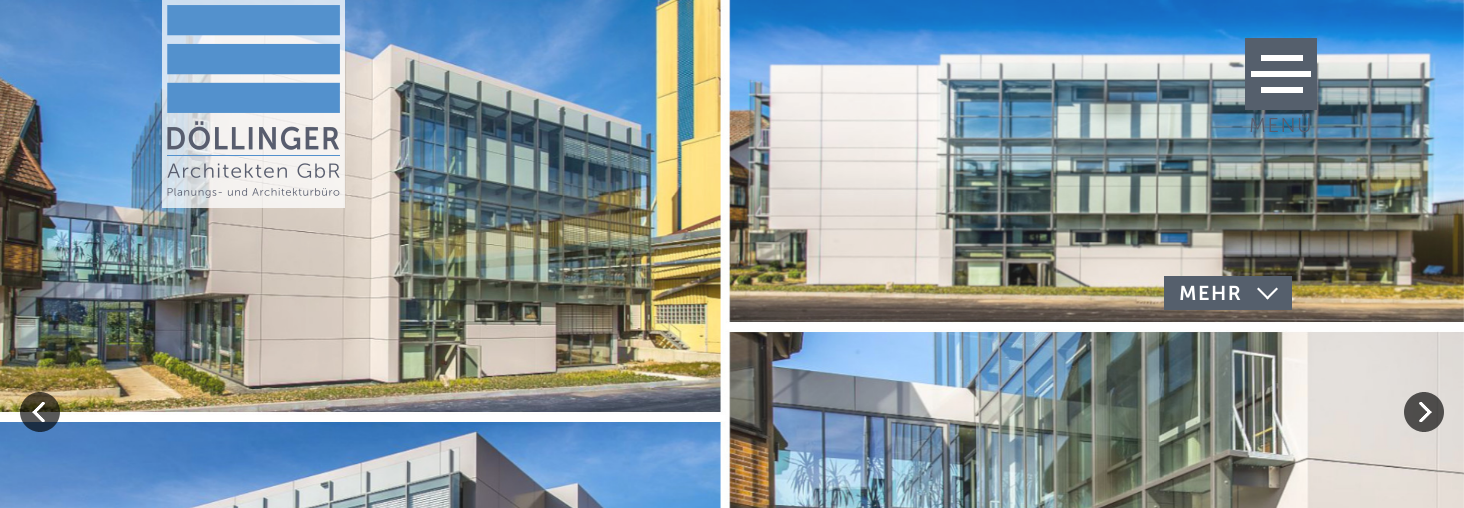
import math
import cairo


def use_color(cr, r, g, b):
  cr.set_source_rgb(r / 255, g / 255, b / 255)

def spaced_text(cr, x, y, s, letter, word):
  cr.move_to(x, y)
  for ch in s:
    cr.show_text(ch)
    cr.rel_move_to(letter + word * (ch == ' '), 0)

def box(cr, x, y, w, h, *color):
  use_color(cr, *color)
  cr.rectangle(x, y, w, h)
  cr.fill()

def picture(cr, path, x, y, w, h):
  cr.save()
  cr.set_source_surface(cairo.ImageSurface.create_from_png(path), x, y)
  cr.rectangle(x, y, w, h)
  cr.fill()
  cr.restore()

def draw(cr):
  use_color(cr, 255, 255, 255)
  cr.paint()
  picture(cr, "img_01.png", 0, 0, 1464, 508)
  picture(cr, "img_02.png", 20, 392, 40, 40)
  picture(cr, "img_03.png", 1404, 392, 40, 40)
  cr.set_source_rgba(1, 1, 1, 0.75)
  cr.rectangle(162, 0, 183, 208)
  cr.fill()
  picture(cr, "img_04.png", 167, 5, 173, 193)
  box(cr, 1245, 38, 72, 72, 85, 95, 108)
  box(cr, 1251, 71, 60, 6, 255, 255, 255)
  box(cr, 1261, 55, 42, 6, 255, 255, 255)
  box(cr, 1261, 87, 42, 6, 255, 255, 255)
  box(cr, 1164, 276, 128, 34, 85, 95, 108)
  use_color(cr, 255, 255, 255)
  cr.new_path()
  cr.move_to(1266, 298)
  cr.line_to(1276.5, 287.5)
  cr.line_to(1278, 289)
  cr.line_to(1267.5, 299.5)
  cr.close_path()
  cr.fill()
  cr.new_path()
  cr.move_to(1257, 289)
  cr.line_to(1258.5, 287.5)
  cr.line_to(1269, 298)
  cr.line_to(1267.5, 299.5)
  cr.close_path()
  cr.fill()
  cr.select_font_face("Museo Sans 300 Light")
  cr.set_font_size(20)
  use_color(cr, 88, 92, 109)
  spaced_text(cr, 1249, 132, "MENÜ", 1.5, 0)
  cr.select_font_face("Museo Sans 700 SemiBold")
  use_color(cr, 255, 255, 255)
  spaced_text(cr, 1179, 300, "MEHR", 1.5, 0)


surface = cairo.ImageSurface(cairo.FORMAT_RGB24, 1464, 508)
cr = cairo.Context(surface)
options = cairo.FontOptions()
options.set_hint_metrics(cairo.HINT_METRICS_OFF)
options.set_hint_style(cairo.HINT_STYLE_NONE)
cr.set_font_options(options)
cr.set_miter_limit(4)
draw(cr)
surface.write_to_png("out.png")
